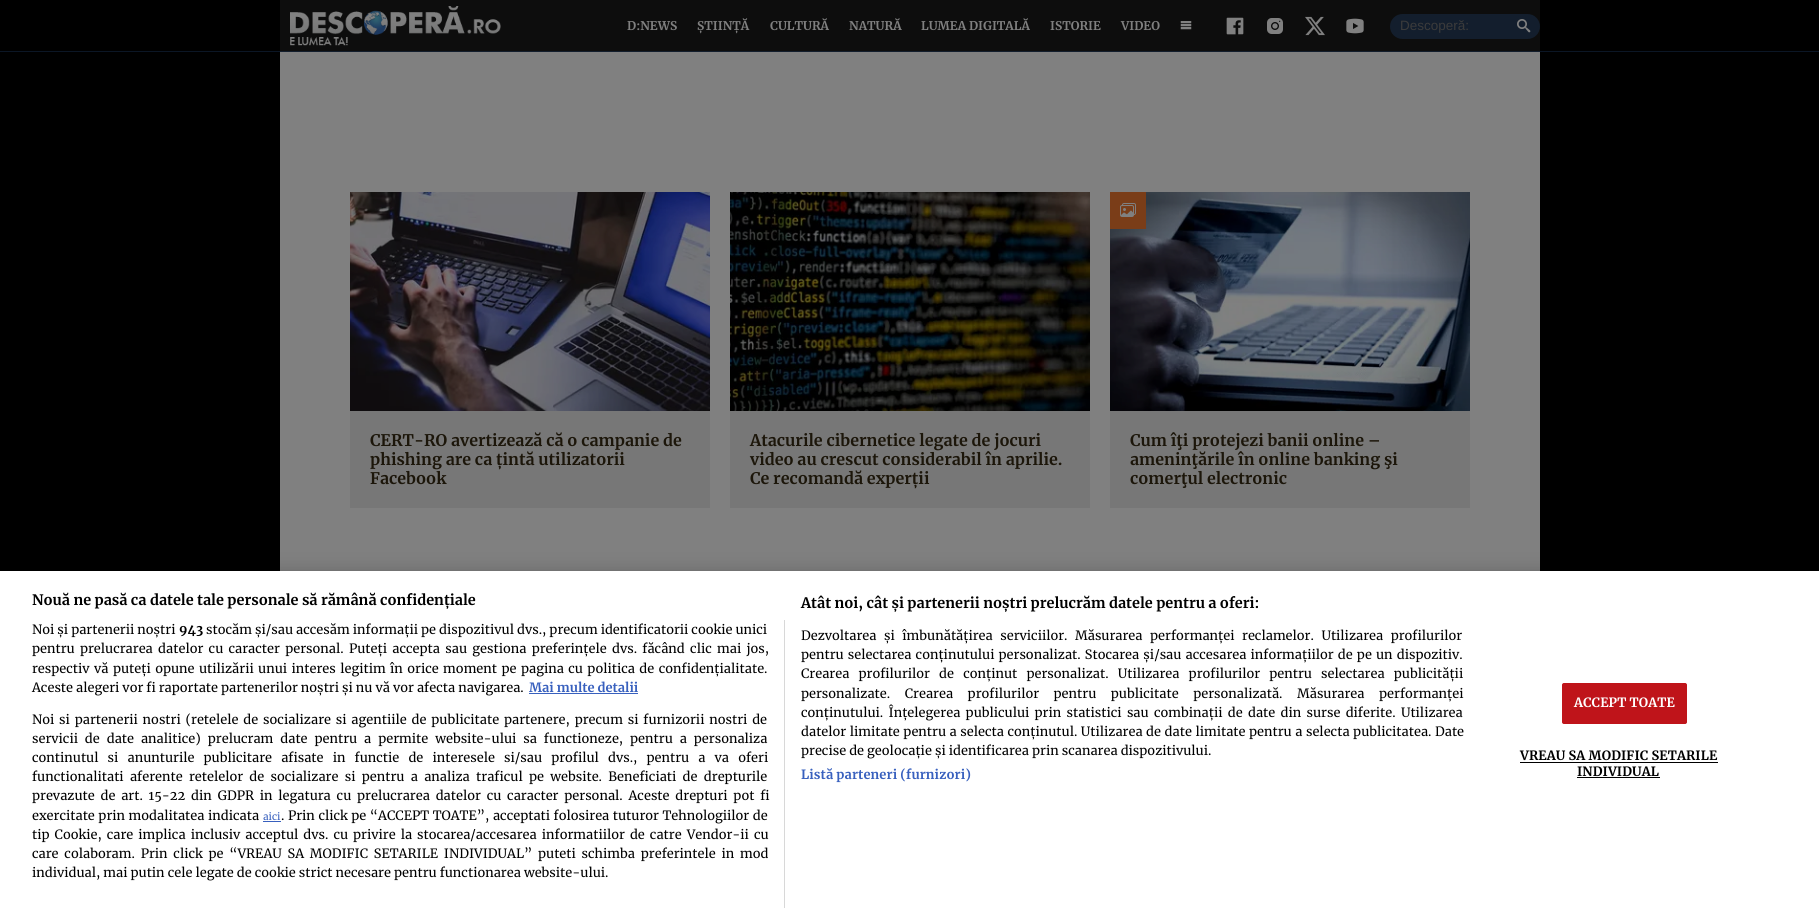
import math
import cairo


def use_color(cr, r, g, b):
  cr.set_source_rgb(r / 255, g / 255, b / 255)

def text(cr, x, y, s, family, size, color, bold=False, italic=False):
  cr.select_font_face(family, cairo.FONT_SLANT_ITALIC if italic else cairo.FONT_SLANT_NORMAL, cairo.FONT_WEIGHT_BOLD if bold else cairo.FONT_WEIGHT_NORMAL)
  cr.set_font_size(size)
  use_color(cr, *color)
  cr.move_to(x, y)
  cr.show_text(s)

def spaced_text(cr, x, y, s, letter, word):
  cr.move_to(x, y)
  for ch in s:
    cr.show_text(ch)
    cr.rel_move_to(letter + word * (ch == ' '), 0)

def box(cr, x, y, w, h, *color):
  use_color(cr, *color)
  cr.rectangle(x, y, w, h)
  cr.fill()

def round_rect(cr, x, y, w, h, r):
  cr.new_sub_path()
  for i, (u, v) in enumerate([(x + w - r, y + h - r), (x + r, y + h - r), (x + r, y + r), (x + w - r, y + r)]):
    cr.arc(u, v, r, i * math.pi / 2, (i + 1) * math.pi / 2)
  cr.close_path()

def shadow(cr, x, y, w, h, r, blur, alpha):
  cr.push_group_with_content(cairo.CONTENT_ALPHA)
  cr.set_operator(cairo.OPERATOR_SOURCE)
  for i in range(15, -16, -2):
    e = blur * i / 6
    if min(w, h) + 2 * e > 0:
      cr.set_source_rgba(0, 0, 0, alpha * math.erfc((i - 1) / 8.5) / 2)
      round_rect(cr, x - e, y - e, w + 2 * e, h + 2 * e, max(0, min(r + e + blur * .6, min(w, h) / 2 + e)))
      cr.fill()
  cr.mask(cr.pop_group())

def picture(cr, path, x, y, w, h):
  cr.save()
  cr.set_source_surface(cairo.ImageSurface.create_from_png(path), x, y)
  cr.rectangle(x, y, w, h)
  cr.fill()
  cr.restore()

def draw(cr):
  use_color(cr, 0, 0, 0)
  cr.paint()
  box(cr, 0, 51, 1819, 1, 11, 22, 37)
  box(cr, 280, 0, 1260, 51, 13, 13, 13)
  picture(cr, "img_01.png", 290, 6, 211, 40)
  picture(cr, "img_02.png", 1180, 21, 12, 9)
  picture(cr, "img_03.png", 1226, 17, 18, 18)
  picture(cr, "img_04.png", 1267, 18, 16, 16)
  picture(cr, "img_05.png", 1305, 16, 20, 20)
  picture(cr, "img_06.png", 1346, 18, 18, 16)
  use_color(cr, 19, 30, 45)
  round_rect(cr, 1390, 14, 150, 25, 12.5)
  cr.fill()
  picture(cr, "img_07.png", 1517, 19, 14, 14)
  box(cr, 280, 52, 1260, 519, 128, 128, 128)
  box(cr, 280, 51, 1260, 1, 19, 30, 45)
  box(cr, 350, 411, 360, 97, 119, 119, 119)
  picture(cr, "img_08.png", 350, 192, 360, 219)
  box(cr, 730, 411, 360, 97, 119, 119, 119)
  picture(cr, "img_09.png", 730, 192, 360, 219)
  box(cr, 1110, 411, 360, 97, 119, 119, 119)
  picture(cr, "img_10.png", 1110, 192, 360, 219)
  box(cr, 1110, 192, 36, 37, 122, 61, 24)
  picture(cr, "img_11.png", 1120, 203, 16, 14)
  use_color(cr, 0, 0, 0)
  shadow(cr, 0, 571, 1819, 347, 0, 9, 0.2)
  box(cr, 0, 571, 1819, 347, 255, 255, 255)
  box(cr, 784, 620, 1, 288, 216, 216, 216)
  box(cr, 529, 693, 109, 1, 56, 96, 190)
  box(cr, 263, 821, 18, 1, 56, 96, 190)
  use_color(cr, 191, 20, 26)
  round_rect(cr, 1562.5, 683.5, 124, 40, 1.5)
  cr.fill_preserve()
  cr.set_line_width(1)
  cr.stroke()
  box(cr, 1520, 762, 198, 1, 0, 0, 0)
  box(cr, 1577, 777, 83, 1, 0, 0, 0)
  text(cr, 627, 30, "D:NEWS", "Merriweather", 12, (128, 128, 128), bold=True)
  text(cr, 697, 30, "ȘTIINȚĂ", "Merriweather", 12, (128, 128, 128), bold=True)
  text(cr, 770, 30, "CULTURĂ", "Merriweather", 12, (128, 128, 128), bold=True)
  text(cr, 849, 30, "NATURĂ", "Merriweather", 12, (128, 128, 128), bold=True)
  text(cr, 921, 30, "LUMEA DIGITALĂ", "Merriweather", 12, (128, 128, 128), bold=True)
  text(cr, 1050, 30, "ISTORIE", "Merriweather", 12, (128, 128, 128), bold=True)
  text(cr, 1121, 30, "VIDEO", "Merriweather", 12, (128, 128, 128), bold=True)
  text(cr, 1400, 30, "Descoperă:", "Liberation Sans", 13.5, (59, 59, 59))
  text(cr, 370, 446, "CERT-RO avertizează că o campanie de", "Merriweather", 16, (28, 22, 10), bold=True)
  text(cr, 370, 465, "phishing are ca țintă utilizatorii", "Merriweather", 16, (28, 22, 10), bold=True)
  text(cr, 370, 484, "Facebook", "Merriweather", 16, (28, 22, 10), bold=True)
  text(cr, 750, 446, "Atacurile cibernetice legate de jocuri", "Merriweather", 16, (28, 22, 10), bold=True)
  text(cr, 750, 465, "video au crescut considerabil în aprilie.", "Merriweather", 16, (28, 22, 10), bold=True)
  text(cr, 750, 484, "Ce recomandă experții", "Merriweather", 16, (28, 22, 10), bold=True)
  text(cr, 1130, 446, "Cum îţi protejezi banii online –", "Merriweather", 16, (28, 22, 10), bold=True)
  text(cr, 1130, 465, "ameninţările în online banking şi", "Merriweather", 16, (28, 22, 10), bold=True)
  text(cr, 1130, 484, "comerţul electronic", "Merriweather", 16, (28, 22, 10), bold=True)
  text(cr, 32, 605, "Nouă ne pasă ca datele tale personale să rămână confidențiale", "Merriweather", 14.4, (0, 0, 0), bold=True)
  text(cr, 801, 608, "Atât noi, cât și partenerii noștri prelucrăm datele pentru a oferi:", "Merriweather", 14.4, (0, 0, 0), bold=True)
  cr.select_font_face("Merriweather")
  cr.set_font_size(12.8)
  spaced_text(cr, 801, 640, "Dezvoltarea și îmbunătățirea serviciilor. Măsurarea performanței reclamelor. Utilizarea profilurilor", 0, 4.5)
  spaced_text(cr, 801, 659, "pentru selectarea conținutului personalizat. Stocarea și/sau accesarea informațiilor de pe un dispozitiv.", 0, 1.1)
  spaced_text(cr, 801, 678, "Crearea profilurilor de conținut personalizat. Utilizarea profilurilor pentru selectarea publicității", 0, 6.1)
  spaced_text(cr, 801, 698, "personalizate. Crearea profilurilor pentru publicitate personalizată. Măsurarea performanței", 0, 11.5)
  spaced_text(cr, 801, 717, "conținutului. Înțelegerea publicului prin statistici sau combinații de date din surse diferite. Utilizarea", 0, 2.25)
  spaced_text(cr, 801, 736, "datelor limitate pentru a selecta conținutul. Utilizarea de date limitate pentru a selecta publicitatea. Date", 0, 0.5)
  text(cr, 801, 755, "precise de geolocație și identificarea prin scanarea dispozitivului.", "Merriweather", 12.8, (0, 0, 0))
  cr.select_font_face("Merriweather", cairo.FONT_SLANT_NORMAL, cairo.FONT_WEIGHT_BOLD)
  use_color(cr, 56, 96, 190)
  spaced_text(cr, 801, 779, "Listă parteneri (furnizori)", 0.1, 0)
  text(cr, 32, 634, "Noi și partenerii noștri", "Merriweather", 12.8, (0, 0, 0))
  text(cr, 179, 634, "943", "Merriweather", 12.8, (0, 0, 0), bold=True)
  text(cr, 206, 634, "stocăm și/sau accesăm informații pe dispozitivul dvs., precum identificatorii cookie unici", "Merriweather", 12.8, (0, 0, 0))
  spaced_text(cr, 32, 653, "pentru prelucrarea datelor cu caracter personal. Puteți accepta sau gestiona preferințele dvs. făcând clic mai jos,", 0, 2.25)
  spaced_text(cr, 32, 673, "respectiv vă puteți opune utilizării unui interes legitim în orice moment pe pagina cu politica de confidențialitate.", 0, 1.4)
  text(cr, 32, 692, "Aceste alegeri vor fi raportate partenerilor noștri și nu vă vor afecta navigarea.", "Merriweather", 12.8, (0, 0, 0))
  text(cr, 529, 692, "Mai multe detalii", "Merriweather", 12.8, (56, 96, 190), bold=True)
  cr.select_font_face("Merriweather")
  use_color(cr, 0, 0, 0)
  spaced_text(cr, 32, 724, "Noi si partenerii nostri (retelele de socializare si agentiile de publicitate partenere, precum si furnizorii nostri de", 0, 1.8)
  spaced_text(cr, 32, 743, "servicii de date analitice) prelucram date pentru a permite website-ului sa functioneze, pentru a personaliza", 0, 3.9)
  spaced_text(cr, 32, 762, "continutul si anunturile publicitare afisate in functie de interesele si/sau profilul dvs., pentru a va oferi", 0, 6.1)
  spaced_text(cr, 32, 781, "functionalitati aferente retelelor de socializare si pentru a analiza traficul pe website. Beneficiati de drepturile", 0, 3.25)
  spaced_text(cr, 32, 800, "prevazute de art. 15-22 din GDPR in legatura cu prelucrarea datelor cu caracter personal. Aceste drepturi pot fi", 0, 2.75)
  spaced_text(cr, 32, 820, "exercitate prin modalitatea indicata", 0, 0.5)
  text(cr, 263, 820, "aici", "Merriweather", 10, (56, 96, 190))
  cr.set_font_size(12.8)
  use_color(cr, 0, 0, 0)
  spaced_text(cr, 281, 820, ". Prin click pe “ACCEPT TOATE”, acceptati folosirea tuturor Tehnologiilor de", 0, 0.5)
  spaced_text(cr, 32, 839, "tip Cookie, care implica inclusiv acceptul dvs. cu privire la stocarea/accesarea informatiilor de catre Vendor-ii cu", 0, 2)
  spaced_text(cr, 32, 858, "care colaboram. Prin click pe “VREAU SA MODIFIC SETARILE INDIVIDUAL” puteti schimba preferintele in mod", 0, 2.75)
  text(cr, 32, 877, "individual, mai putin cele legate de cookie strict necesare pentru functionarea website-ului.", "Merriweather", 12.8, (0, 0, 0))
  cr.select_font_face("Merriweather", cairo.FONT_SLANT_NORMAL, cairo.FONT_WEIGHT_BOLD)
  use_color(cr, 255, 255, 255)
  spaced_text(cr, 1574, 707, "ACCEPT TOATE", 0.1, 0)
  use_color(cr, 0, 0, 0)
  spaced_text(cr, 1520, 760, "VREAU SA MODIFIC SETARILE", 0.1, 0)
  spaced_text(cr, 1577, 776, "INDIVIDUAL", 0.1, 0)


surface = cairo.ImageSurface(cairo.FORMAT_RGB24, 1819, 918)
cr = cairo.Context(surface)
options = cairo.FontOptions()
options.set_hint_metrics(cairo.HINT_METRICS_OFF)
options.set_hint_style(cairo.HINT_STYLE_NONE)
cr.set_font_options(options)
cr.set_miter_limit(4)
draw(cr)
surface.write_to_png("out.png")
